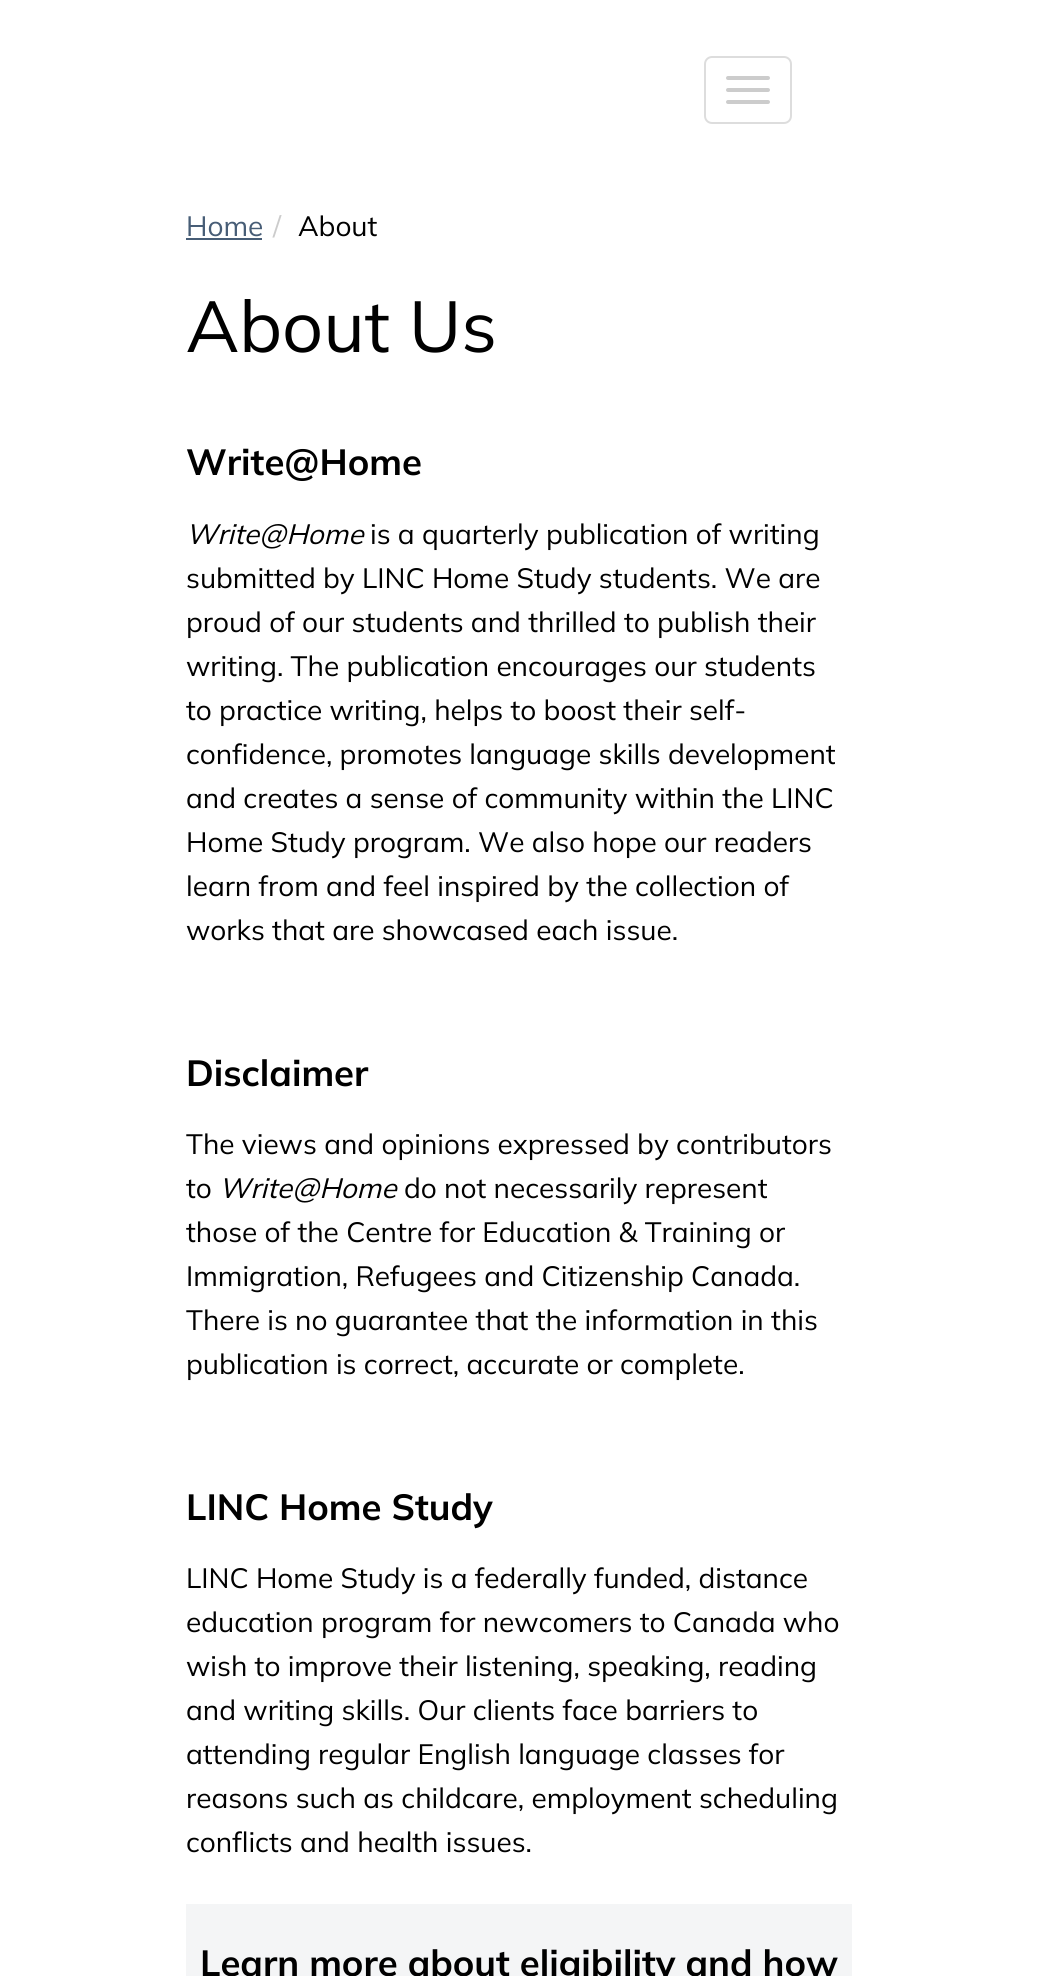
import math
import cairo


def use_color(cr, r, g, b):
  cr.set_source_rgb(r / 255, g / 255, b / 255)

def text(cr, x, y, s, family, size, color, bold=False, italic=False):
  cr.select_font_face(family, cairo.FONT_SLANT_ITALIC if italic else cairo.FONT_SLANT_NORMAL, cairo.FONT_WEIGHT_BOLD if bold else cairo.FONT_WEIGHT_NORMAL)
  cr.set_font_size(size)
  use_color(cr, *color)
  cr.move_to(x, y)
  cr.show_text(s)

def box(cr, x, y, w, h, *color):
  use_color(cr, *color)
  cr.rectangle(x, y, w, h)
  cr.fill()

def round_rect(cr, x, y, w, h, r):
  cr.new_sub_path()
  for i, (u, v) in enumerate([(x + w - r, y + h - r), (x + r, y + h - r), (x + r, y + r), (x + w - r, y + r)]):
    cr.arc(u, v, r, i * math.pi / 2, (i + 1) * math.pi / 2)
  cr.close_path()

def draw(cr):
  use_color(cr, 255, 255, 255)
  cr.paint()
  round_rect(cr, 705, 57, 86, 66, 7)
  use_color(cr, 221, 221, 221)
  cr.stroke()
  use_color(cr, 204, 204, 204)
  round_rect(cr, 726, 76, 44, 4, 2)
  cr.fill()
  round_rect(cr, 726, 88, 44, 4, 2)
  cr.fill()
  round_rect(cr, 726, 100, 44, 4, 2)
  cr.fill()
  box(cr, 186, 238, 76, 2, 71, 93, 118)
  box(cr, 186, 1904, 666, 72, 244, 245, 246)
  text(cr, 186, 236, "Home", "Mulish", 28, (71, 93, 118))
  text(cr, 273, 236, "/", "Mulish", 28, (204, 204, 204))
  text(cr, 298, 236, "About", "Mulish", 28, (0, 0, 0))
  text(cr, 186, 352, "About Us", "Mulish", 72, (0, 0, 0))
  text(cr, 186, 475, "Write@Home", "Mulish", 36.4, (0, 0, 0), bold=True)
  text(cr, 186, 544, "Write@Home", "Mulish", 28, (0, 0, 0), italic=True)
  text(cr, 370, 544, "is a quarterly publication of writing", "Mulish", 28, (0, 0, 0))
  text(cr, 186, 588, "submitted by LINC Home Study students. We are", "Mulish", 28, (0, 0, 0))
  text(cr, 186, 632, "proud of our students and thrilled to publish their", "Mulish", 28, (0, 0, 0))
  text(cr, 186, 676, "writing. The publication encourages our students", "Mulish", 28, (0, 0, 0))
  text(cr, 186, 720, "to practice writing, helps to boost their self-", "Mulish", 28, (0, 0, 0))
  text(cr, 186, 764, "confidence, promotes language skills development", "Mulish", 28, (0, 0, 0))
  text(cr, 186, 808, "and creates a sense of community within the LINC", "Mulish", 28, (0, 0, 0))
  text(cr, 186, 852, "Home Study program. We also hope our readers", "Mulish", 28, (0, 0, 0))
  text(cr, 186, 896, "learn from and feel inspired by the collection of", "Mulish", 28, (0, 0, 0))
  text(cr, 186, 940, "works that are showcased each issue.", "Mulish", 28, (0, 0, 0))
  text(cr, 186, 1086, "Disclaimer", "Mulish", 36.4, (0, 0, 0), bold=True)
  text(cr, 186, 1154, "The views and opinions expressed by contributors", "Mulish", 28, (0, 0, 0))
  text(cr, 186, 1198, "to", "Mulish", 28, (0, 0, 0))
  text(cr, 219, 1198, "Write@Home", "Mulish", 28, (0, 0, 0), italic=True)
  text(cr, 404, 1198, "do not necessarily represent", "Mulish", 28, (0, 0, 0))
  text(cr, 186, 1242, "those of the Centre for Education & Training or", "Mulish", 28, (0, 0, 0))
  text(cr, 186, 1286, "Immigration, Refugees and Citizenship Canada.", "Mulish", 28, (0, 0, 0))
  text(cr, 186, 1330, "There is no guarantee that the information in this", "Mulish", 28, (0, 0, 0))
  text(cr, 186, 1374, "publication is correct, accurate or complete.", "Mulish", 28, (0, 0, 0))
  text(cr, 186, 1520, "LINC Home Study", "Mulish", 36.4, (0, 0, 0), bold=True)
  text(cr, 186, 1588, "LINC Home Study is a federally funded, distance", "Mulish", 28, (0, 0, 0))
  text(cr, 186, 1632, "education program for newcomers to Canada who", "Mulish", 28, (0, 0, 0))
  text(cr, 186, 1676, "wish to improve their listening, speaking, reading", "Mulish", 28, (0, 0, 0))
  text(cr, 186, 1720, "and writing skills. Our clients face barriers to", "Mulish", 28, (0, 0, 0))
  text(cr, 186, 1764, "attending regular English language classes for", "Mulish", 28, (0, 0, 0))
  text(cr, 186, 1808, "reasons such as childcare, employment scheduling", "Mulish", 28, (0, 0, 0))
  text(cr, 186, 1852, "conflicts and health issues.", "Mulish", 28, (0, 0, 0))
  text(cr, 200, 1976, "Learn more about eligibility and how", "Mulish", 36.4, (0, 0, 0), bold=True)


surface = cairo.ImageSurface(cairo.FORMAT_RGB24, 1037, 1976)
cr = cairo.Context(surface)
options = cairo.FontOptions()
options.set_hint_metrics(cairo.HINT_METRICS_OFF)
options.set_hint_style(cairo.HINT_STYLE_NONE)
cr.set_font_options(options)
cr.set_miter_limit(4)
draw(cr)
surface.write_to_png("out.png")
